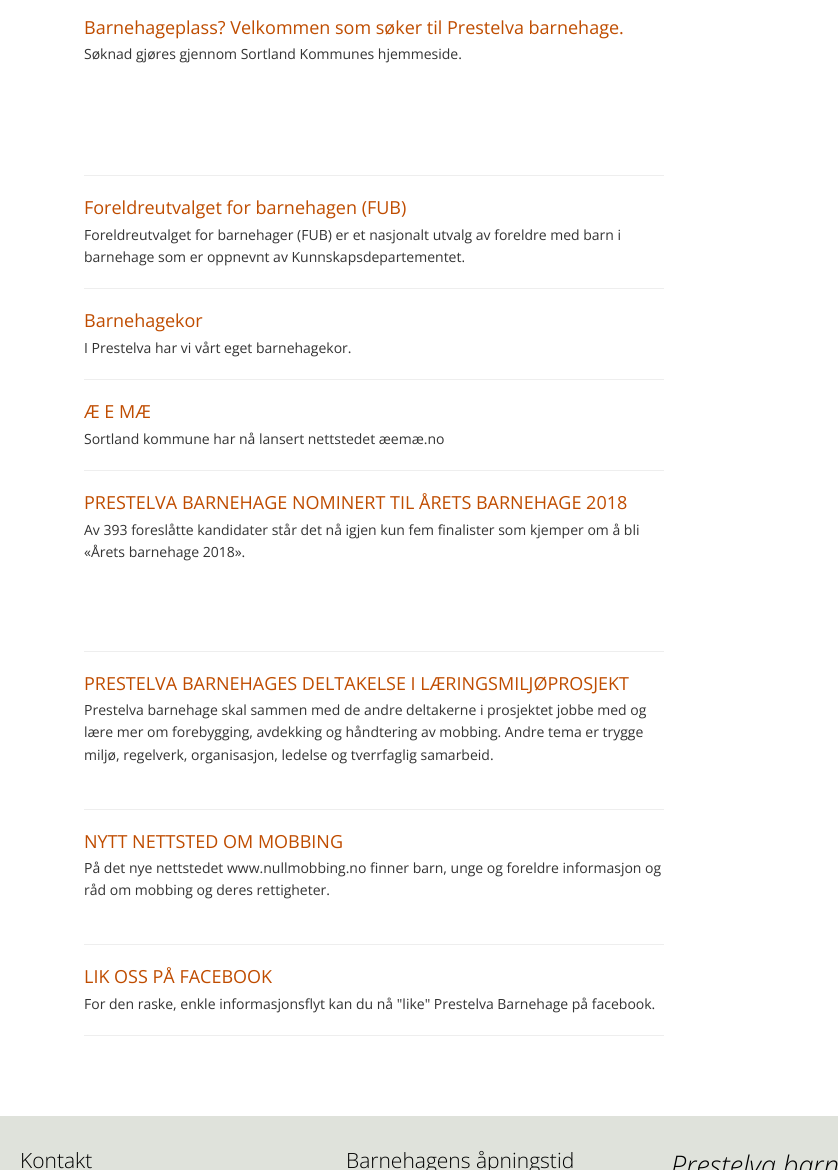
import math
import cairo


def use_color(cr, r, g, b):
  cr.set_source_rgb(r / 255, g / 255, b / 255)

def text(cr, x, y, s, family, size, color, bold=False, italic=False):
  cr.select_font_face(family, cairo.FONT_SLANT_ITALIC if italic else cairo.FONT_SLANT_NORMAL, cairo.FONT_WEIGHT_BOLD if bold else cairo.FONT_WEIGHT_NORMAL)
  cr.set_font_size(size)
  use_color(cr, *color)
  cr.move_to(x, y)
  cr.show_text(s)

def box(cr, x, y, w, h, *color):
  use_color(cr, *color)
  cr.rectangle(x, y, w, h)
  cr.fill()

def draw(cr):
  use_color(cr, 223, 226, 219)
  cr.paint()
  box(cr, 0, 0, 838, 1116, 255, 255, 255)
  box(cr, 84, 175, 580, 1, 238, 238, 238)
  box(cr, 84, 288, 580, 1, 238, 238, 238)
  box(cr, 84, 379, 580, 1, 238, 238, 238)
  box(cr, 84, 470, 580, 1, 238, 238, 238)
  box(cr, 84, 651, 580, 1, 238, 238, 238)
  box(cr, 84, 809, 580, 1, 238, 238, 238)
  box(cr, 84, 944, 580, 1, 238, 238, 238)
  box(cr, 84, 1035, 580, 1, 238, 238, 238)
  text(cr, 84, 34, "Barnehageplass? Velkommen som søker til Prestelva barnehage.", "Open Sans", 18, (191, 76, 0))
  text(cr, 84, 59, "Søknad gjøres gjennom Sortland Kommunes hjemmeside.", "Open Sans", 14, (51, 51, 51))
  text(cr, 84, 214, "Foreldreutvalget for barnehagen (FUB)", "Open Sans", 18, (191, 76, 0))
  text(cr, 84, 240, "Foreldreutvalget for barnehager (FUB) er et nasjonalt utvalg av foreldre med barn i", "Open Sans", 14, (51, 51, 51))
  text(cr, 84, 262, "barnehage som er oppnevnt av Kunnskapsdepartementet.", "Open Sans", 14, (51, 51, 51))
  text(cr, 84, 327, "Barnehagekor", "Open Sans", 18, (191, 76, 0))
  text(cr, 84, 353, "I Prestelva har vi vårt eget barnehagekor.", "Open Sans", 14, (51, 51, 51))
  text(cr, 84, 418, "Æ E MÆ", "Open Sans", 18, (191, 76, 0))
  text(cr, 84, 444, "Sortland kommune har nå lansert nettstedet æemæ.no", "Open Sans", 14, (51, 51, 51))
  text(cr, 84, 509, "PRESTELVA BARNEHAGE NOMINERT TIL ÅRETS BARNEHAGE 2018", "Open Sans", 18, (191, 76, 0))
  text(cr, 84, 535, "Av 393 foreslåtte kandidater står det nå igjen kun fem finalister som kjemper om å bli", "Open Sans", 14, (51, 51, 51))
  text(cr, 84, 557, "«Årets barnehage 2018».", "Open Sans", 14, (51, 51, 51))
  text(cr, 84, 690, "PRESTELVA BARNEHAGES DELTAKELSE I LÆRINGSMILJØPROSJEKT", "Open Sans", 18, (191, 76, 0))
  text(cr, 84, 715, "Prestelva barnehage skal sammen med de andre deltakerne i prosjektet jobbe med og", "Open Sans", 14, (51, 51, 51))
  text(cr, 84, 737, "lære mer om forebygging, avdekking og håndtering av mobbing. Andre tema er trygge", "Open Sans", 14, (51, 51, 51))
  text(cr, 84, 760, "miljø, regelverk, organisasjon, ledelse og tverrfaglig samarbeid.", "Open Sans", 14, (51, 51, 51))
  text(cr, 84, 848, "NYTT NETTSTED OM MOBBING", "Open Sans", 18, (191, 76, 0))
  text(cr, 84, 873, "På det nye nettstedet www.nullmobbing.no finner barn, unge og foreldre informasjon og", "Open Sans", 14, (51, 51, 51))
  text(cr, 84, 895, "råd om mobbing og deres rettigheter.", "Open Sans", 14, (51, 51, 51))
  text(cr, 84, 983, "LIK OSS PÅ FACEBOOK", "Open Sans", 18, (191, 76, 0))
  text(cr, 84, 1009, "For den raske, enkle informasjonsflyt kan du nå \"like\" Prestelva Barnehage på facebook.", "Open Sans", 14, (51, 51, 51))
  text(cr, 20, 1168, "Kontakt", "Open Sans Light", 21, (0, 0, 0))
  text(cr, 346, 1168, "Barnehagens åpningstid", "Open Sans Light", 21, (0, 0, 0))
  text(cr, 671, 1175, "Prestelva barn", "Open Sans Light", 27, (0, 0, 0), italic=True)


surface = cairo.ImageSurface(cairo.FORMAT_RGB24, 838, 1170)
cr = cairo.Context(surface)
options = cairo.FontOptions()
options.set_hint_metrics(cairo.HINT_METRICS_OFF)
options.set_hint_style(cairo.HINT_STYLE_NONE)
cr.set_font_options(options)
cr.set_miter_limit(4)
draw(cr)
surface.write_to_png("out.png")
